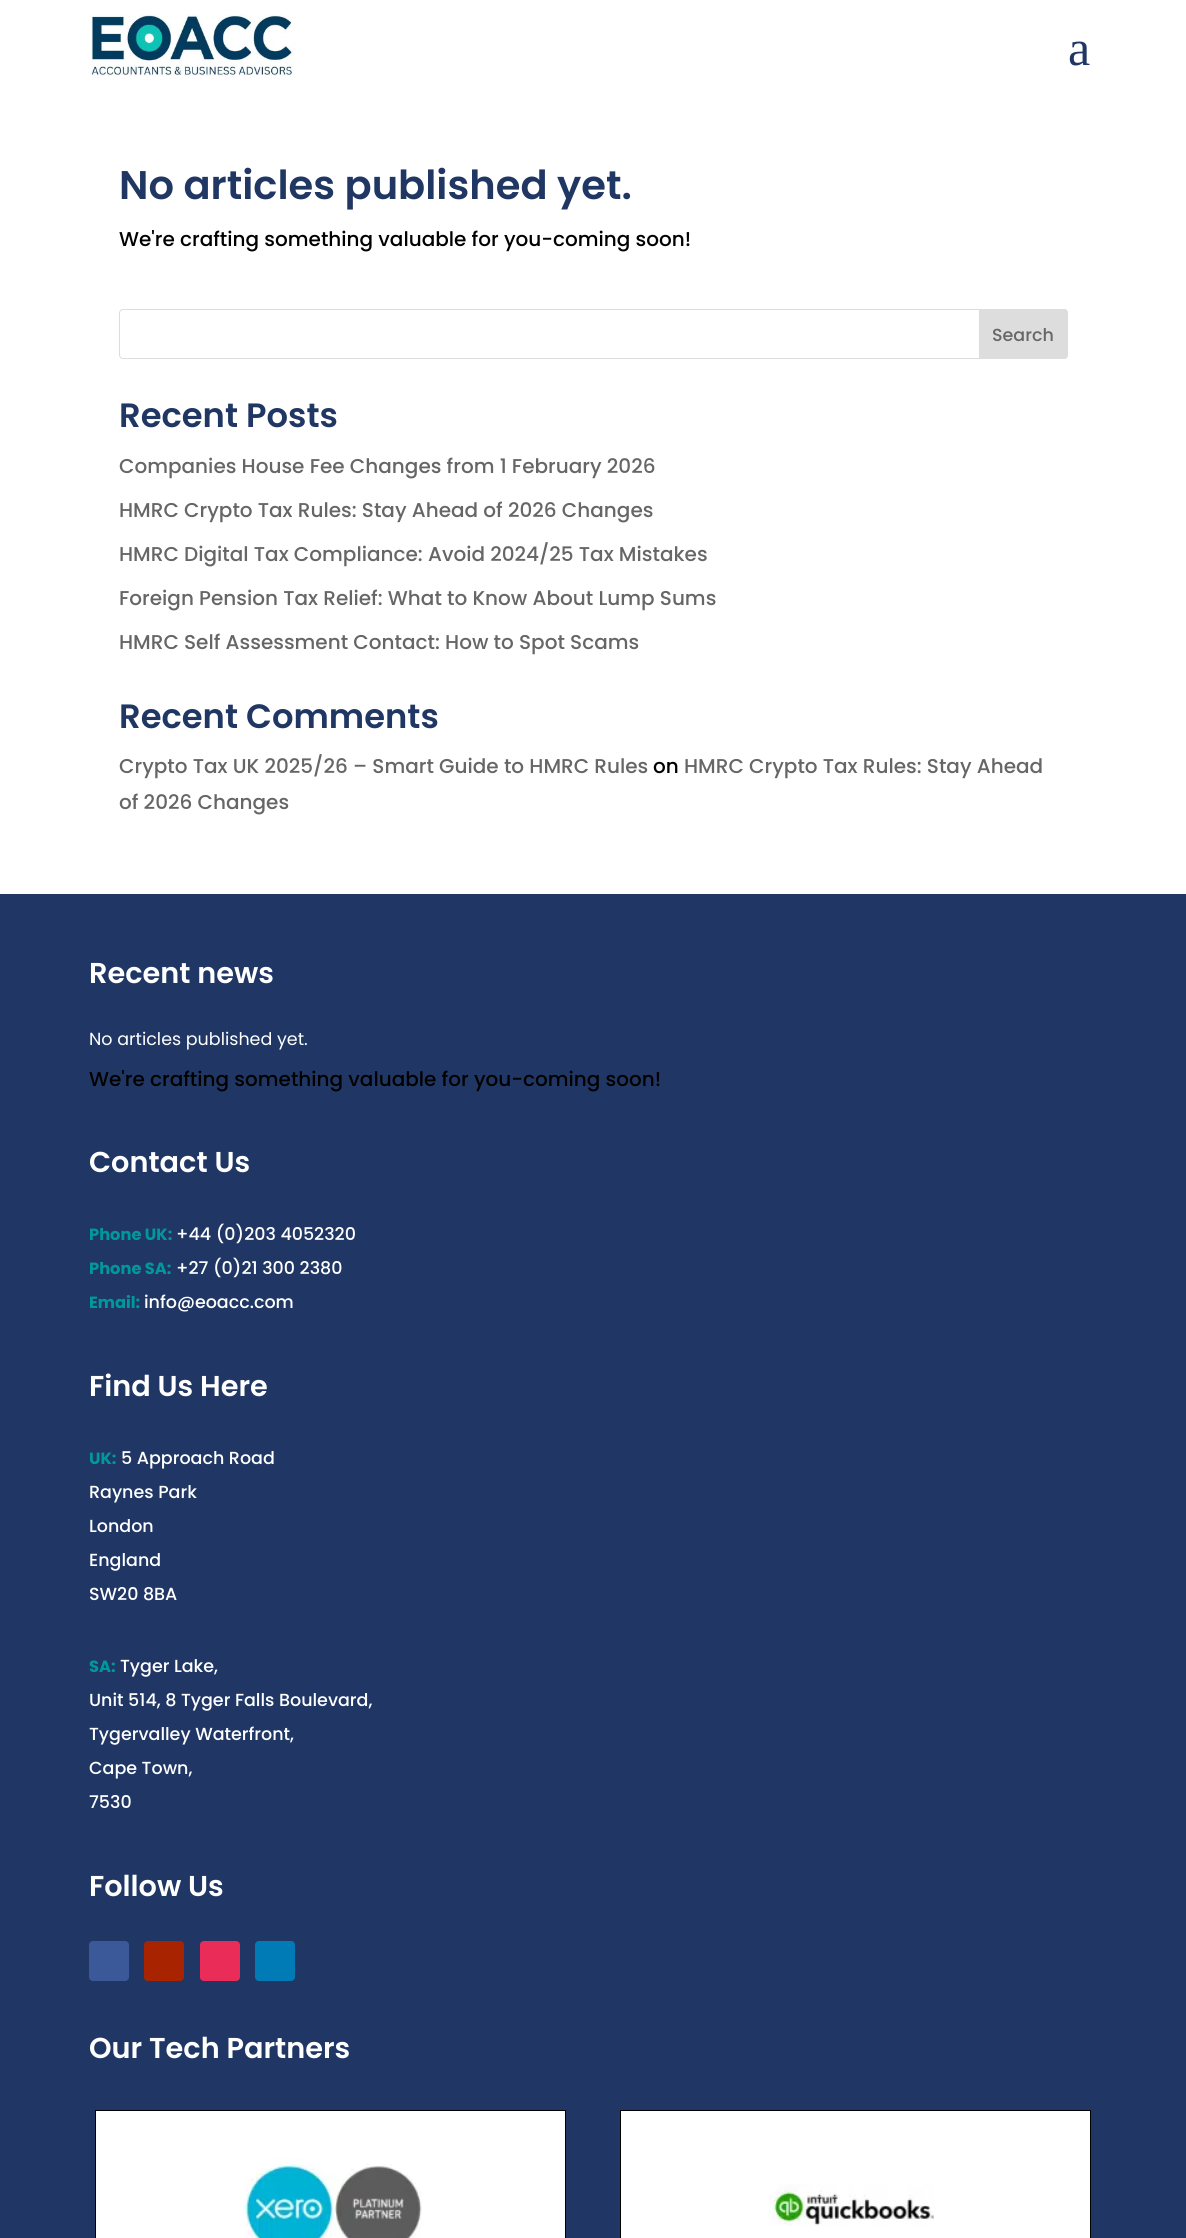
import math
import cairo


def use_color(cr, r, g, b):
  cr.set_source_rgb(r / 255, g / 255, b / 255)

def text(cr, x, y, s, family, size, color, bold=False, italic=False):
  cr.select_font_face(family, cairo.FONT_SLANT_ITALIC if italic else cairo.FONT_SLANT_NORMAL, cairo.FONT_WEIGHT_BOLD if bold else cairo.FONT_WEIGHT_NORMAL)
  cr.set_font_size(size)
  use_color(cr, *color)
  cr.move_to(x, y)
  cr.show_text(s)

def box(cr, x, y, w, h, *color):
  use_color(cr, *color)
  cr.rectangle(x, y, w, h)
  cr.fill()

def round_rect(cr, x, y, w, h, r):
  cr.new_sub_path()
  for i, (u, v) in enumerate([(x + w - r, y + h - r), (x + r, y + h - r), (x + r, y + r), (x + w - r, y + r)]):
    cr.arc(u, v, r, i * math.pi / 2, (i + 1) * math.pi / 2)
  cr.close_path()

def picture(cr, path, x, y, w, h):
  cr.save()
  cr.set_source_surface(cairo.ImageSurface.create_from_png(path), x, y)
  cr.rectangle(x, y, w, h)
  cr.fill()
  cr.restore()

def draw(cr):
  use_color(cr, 255, 255, 255)
  cr.paint()
  picture(cr, "img_01.png", 90, 14, 205, 62)
  round_rect(cr, 119.5, 309.5, 948, 49, 3.5)
  use_color(cr, 221, 221, 221)
  cr.set_line_width(1)
  cr.stroke()
  cr.new_path()
  cr.move_to(979.5, 309.5)
  cr.line_to(1064, 309.5)
  cr.curve_to(1066, 309.5, 1067.5, 311, 1067.5, 313)
  cr.line_to(1067.5, 355)
  cr.curve_to(1067.5, 357, 1066, 358.5, 1064, 358.5)
  cr.line_to(979.5, 358.5)
  cr.close_path()
  cr.fill_preserve()
  cr.stroke()
  box(cr, 0, 894, 1186, 1344, 32, 55, 101)
  use_color(cr, 59, 89, 152)
  round_rect(cr, 89, 1941, 40, 40, 4)
  cr.fill()
  use_color(cr, 168, 36, 0)
  round_rect(cr, 144, 1941, 40, 40, 4)
  cr.fill()
  use_color(cr, 234, 44, 89)
  round_rect(cr, 200, 1941, 40, 40, 4)
  cr.fill()
  use_color(cr, 0, 123, 182)
  round_rect(cr, 255, 1941, 40, 40, 4)
  cr.fill()
  use_color(cr, 255, 255, 255)
  cr.rectangle(95.5, 2110.5, 470, 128)
  cr.fill_preserve()
  use_color(cr, 0, 0, 0)
  cr.stroke()
  picture(cr, "img_02.png", 245, 2158, 177, 80)
  use_color(cr, 255, 255, 255)
  cr.rectangle(620.5, 2110.5, 470, 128)
  cr.fill_preserve()
  use_color(cr, 0, 0, 0)
  cr.stroke()
  picture(cr, "img_03.png", 769, 2184, 165, 42)
  text(cr, 1068, 65, "a", "Liberation Serif", 50, (32, 55, 100))
  text(cr, 119, 199, "No articles published yet.", "Poppins SemiBold", 40, (32, 55, 100))
  text(cr, 119, 246, "We're crafting something valuable for you-coming soon!", "Poppins Medium", 20, (0, 0, 0))
  text(cr, 992, 341, "Search", "Poppins Medium", 17.5, (102, 102, 102))
  text(cr, 119, 427, "Recent Posts", "Poppins SemiBold", 33.75, (32, 55, 100))
  text(cr, 119, 473, "Companies House Fee Changes from 1 February 2026", "Poppins Medium", 20, (102, 102, 102))
  text(cr, 119, 517, "HMRC Crypto Tax Rules: Stay Ahead of 2026 Changes", "Poppins Medium", 20, (102, 102, 102))
  text(cr, 119, 561, "HMRC Digital Tax Compliance: Avoid 2024/25 Tax Mistakes", "Poppins Medium", 20, (102, 102, 102))
  text(cr, 119, 605, "Foreign Pension Tax Relief: What to Know About Lump Sums", "Poppins Medium", 20, (102, 102, 102))
  text(cr, 119, 649, "HMRC Self Assessment Contact: How to Spot Scams", "Poppins Medium", 20, (102, 102, 102))
  text(cr, 119, 728, "Recent Comments", "Poppins SemiBold", 33.75, (32, 55, 100))
  text(cr, 119, 773, "Crypto Tax UK 2025/26 – Smart Guide to HMRC Rules", "Poppins Medium", 20, (102, 102, 102))
  text(cr, 653, 773, "on", "Poppins Medium", 20, (0, 0, 0))
  text(cr, 684, 773, "HMRC Crypto Tax Rules: Stay Ahead", "Poppins Medium", 20, (102, 102, 102))
  text(cr, 119, 809, "of 2026 Changes", "Poppins Medium", 20, (102, 102, 102))
  text(cr, 89, 983, "Recent news", "Poppins SemiBold", 28.75, (255, 255, 255))
  text(cr, 89, 1045, "No articles published yet.", "Poppins", 17.5, (255, 255, 255))
  text(cr, 89, 1086, "We're crafting something valuable for you-coming soon!", "Poppins Medium", 20, (0, 0, 0))
  text(cr, 89, 1172, "Contact Us", "Poppins SemiBold", 28.75, (255, 255, 255))
  text(cr, 89, 1240, "Phone UK:", "Poppins", 16.25, (0, 153, 153), bold=True)
  text(cr, 176, 1240, "+44 (0)203 4052320", "Poppins Medium", 17.5, (255, 255, 255))
  text(cr, 89, 1274, "Phone SA:", "Poppins", 16.25, (0, 153, 153), bold=True)
  text(cr, 176, 1274, "+27 (0)21 300 2380", "Poppins Medium", 17.5, (255, 255, 255))
  text(cr, 89, 1308, "Email:", "Poppins", 16.25, (0, 153, 153), bold=True)
  text(cr, 144, 1308, "info@eoacc.com", "Poppins Medium", 17.5, (255, 255, 255))
  text(cr, 89, 1396, "Find Us Here", "Poppins SemiBold", 28.75, (255, 255, 255))
  text(cr, 89, 1464, "UK:", "Poppins", 16.25, (0, 153, 153), bold=True)
  text(cr, 121, 1464, "5 Approach Road", "Poppins Medium", 17.5, (255, 255, 255))
  text(cr, 89, 1498, "Raynes Park", "Poppins Medium", 17.5, (255, 255, 255))
  text(cr, 89, 1532, "London", "Poppins Medium", 17.5, (255, 255, 255))
  text(cr, 89, 1566, "England", "Poppins Medium", 17.5, (255, 255, 255))
  text(cr, 89, 1600, "SW20 8BA", "Poppins Medium", 17.5, (255, 255, 255))
  text(cr, 89, 1672, "SA:", "Poppins", 16.25, (0, 153, 153), bold=True)
  text(cr, 120, 1672, "Tyger Lake,", "Poppins Medium", 17.5, (255, 255, 255))
  text(cr, 89, 1706, "Unit 514, 8 Tyger Falls Boulevard,", "Poppins Medium", 17.5, (255, 255, 255))
  text(cr, 89, 1740, "Tygervalley Waterfront,", "Poppins Medium", 17.5, (255, 255, 255))
  text(cr, 89, 1774, "Cape Town,", "Poppins Medium", 17.5, (255, 255, 255))
  text(cr, 89, 1808, "7530", "Poppins Medium", 17.5, (255, 255, 255))
  text(cr, 89, 1896, "Follow Us", "Poppins SemiBold", 28.75, (255, 255, 255))
  text(cr, 89, 2058, "Our Tech Partners", "Poppins SemiBold", 28.75, (255, 255, 255))


surface = cairo.ImageSurface(cairo.FORMAT_RGB24, 1186, 2238)
cr = cairo.Context(surface)
options = cairo.FontOptions()
options.set_hint_metrics(cairo.HINT_METRICS_OFF)
options.set_hint_style(cairo.HINT_STYLE_NONE)
cr.set_font_options(options)
cr.set_miter_limit(4)
draw(cr)
surface.write_to_png("out.png")
